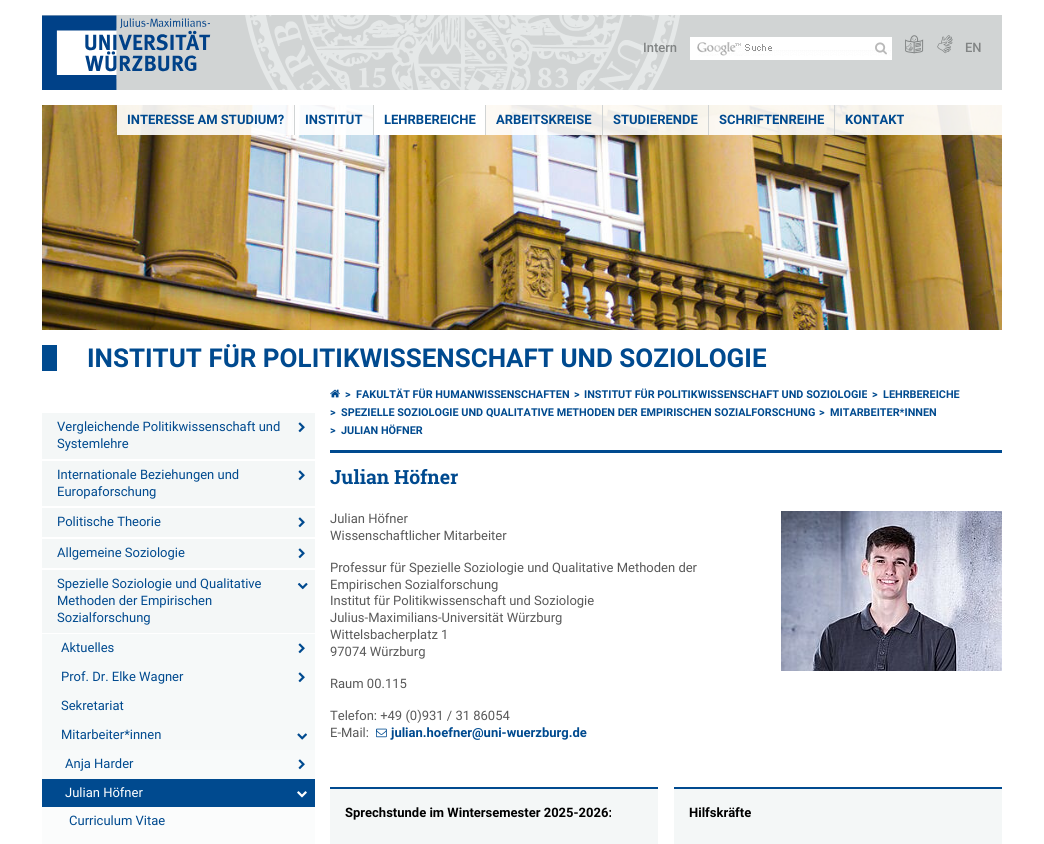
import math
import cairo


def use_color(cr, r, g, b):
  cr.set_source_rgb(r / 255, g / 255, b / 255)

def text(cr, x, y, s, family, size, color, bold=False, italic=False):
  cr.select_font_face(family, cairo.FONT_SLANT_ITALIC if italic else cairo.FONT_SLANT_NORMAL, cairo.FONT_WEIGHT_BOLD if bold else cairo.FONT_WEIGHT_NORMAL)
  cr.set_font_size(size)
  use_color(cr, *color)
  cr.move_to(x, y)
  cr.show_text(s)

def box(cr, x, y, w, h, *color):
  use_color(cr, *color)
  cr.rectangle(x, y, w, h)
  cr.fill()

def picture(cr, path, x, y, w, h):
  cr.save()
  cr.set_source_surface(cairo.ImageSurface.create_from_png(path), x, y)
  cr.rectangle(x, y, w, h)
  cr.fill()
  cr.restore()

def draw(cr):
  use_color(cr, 255, 255, 255)
  cr.paint()
  box(cr, 42, 15, 960, 75, 209, 212, 212)
  picture(cr, "img_01.png", 245, 15, 435, 75)
  picture(cr, "img_02.png", 42, 15, 169, 75)
  box(cr, 690, 37, 202, 23, 255, 255, 255)
  picture(cr, "img_03.png", 697, 42, 194, 14)
  picture(cr, "img_04.png", 875, 42, 12, 13)
  picture(cr, "img_05.png", 905, 35, 19, 19)
  picture(cr, "img_06.png", 937, 35, 16, 19)
  picture(cr, "img_07.png", 42, 105, 960, 225)
  cr.set_source_rgba(1, 1, 1, 0.9)
  cr.rectangle(117, 105, 885, 30)
  cr.fill()
  box(cr, 294, 105, 1, 30, 209, 212, 212)
  box(cr, 374, 105, 111, 30, 255, 255, 255)
  box(cr, 373, 105, 1, 30, 209, 212, 212)
  box(cr, 485, 105, 1, 30, 209, 212, 212)
  box(cr, 602, 105, 1, 30, 209, 212, 212)
  box(cr, 708, 105, 1, 30, 209, 212, 212)
  box(cr, 834, 105, 1, 30, 209, 212, 212)
  box(cr, 42, 345, 15, 26, 0, 74, 143)
  box(cr, 42, 413, 273, 46, 244, 247, 247)
  picture(cr, "img_08.png", 298, 422, 7, 11)
  box(cr, 42, 461, 273, 45, 244, 247, 247)
  picture(cr, "img_08.png", 298, 470, 7, 11)
  box(cr, 42, 508, 273, 29, 244, 247, 247)
  picture(cr, "img_08.png", 298, 517, 7, 11)
  box(cr, 42, 539, 273, 29, 244, 247, 247)
  picture(cr, "img_08.png", 298, 548, 7, 11)
  box(cr, 42, 570, 273, 63, 244, 247, 247)
  picture(cr, "img_09.png", 297, 583, 11, 7)
  box(cr, 42, 634, 273, 58, 246, 249, 249)
  picture(cr, "img_10.png", 298, 643, 7, 11)
  picture(cr, "img_10.png", 298, 672, 7, 11)
  box(cr, 42, 692, 273, 58, 246, 249, 249)
  picture(cr, "img_11.png", 297, 733, 10, 7)
  box(cr, 42, 750, 273, 29, 248, 250, 250)
  picture(cr, "img_12.png", 298, 759, 7, 11)
  box(cr, 42, 779, 273, 28, 0, 74, 143)
  picture(cr, "img_13.png", 297, 791, 10, 7)
  box(cr, 42, 807, 273, 37, 251, 252, 252)
  box(cr, 330, 450, 672, 3, 0, 74, 143)
  picture(cr, "img_14.png", 330, 389, 10, 9)
  picture(cr, "img_15.png", 376, 728, 11, 10)
  picture(cr, "img_16.png", 781, 511, 221, 160)
  box(cr, 330, 789, 328, 55, 244, 247, 247)
  box(cr, 330, 787, 328, 2, 0, 74, 143)
  box(cr, 674, 789, 328, 55, 244, 247, 247)
  box(cr, 674, 787, 328, 2, 0, 74, 143)
  text(cr, 643, 52, "Intern", "Roboto Medium", 13, (129, 132, 132))
  text(cr, 965, 52, "EN", "Roboto Medium", 13, (129, 132, 132))
  text(cr, 127, 124, "INTERESSE AM STUDIUM?", "Roboto", 13, (0, 74, 143), bold=True)
  text(cr, 305, 124, "INSTITUT", "Roboto", 13, (0, 74, 143), bold=True)
  text(cr, 384, 124, "LEHRBEREICHE", "Roboto", 13, (0, 74, 143), bold=True)
  text(cr, 496, 124, "ARBEITSKREISE", "Roboto", 13, (0, 74, 143), bold=True)
  text(cr, 613, 124, "STUDIERENDE", "Roboto", 13, (0, 74, 143), bold=True)
  text(cr, 719, 124, "SCHRIFTENREIHE", "Roboto", 13, (0, 74, 143), bold=True)
  text(cr, 845, 124, "KONTAKT", "Roboto", 13, (0, 74, 143), bold=True)
  text(cr, 87, 367, "INSTITUT FÜR POLITIKWISSENSCHAFT UND SOZIOLOGIE", "Roboto", 26, (0, 74, 143), bold=True)
  text(cr, 57, 431, "Vergleichende Politikwissenschaft und", "Roboto", 13, (0, 74, 143))
  text(cr, 57, 448, "Systemlehre", "Roboto", 13, (0, 74, 143))
  text(cr, 57, 479, "Internationale Beziehungen und", "Roboto", 13, (0, 74, 143))
  text(cr, 57, 496, "Europaforschung", "Roboto", 13, (0, 74, 143))
  text(cr, 57, 526, "Politische Theorie", "Roboto", 13, (0, 74, 143))
  text(cr, 57, 557, "Allgemeine Soziologie", "Roboto", 13, (0, 74, 143))
  text(cr, 57, 588, "Spezielle Soziologie und Qualitative", "Roboto", 13, (0, 74, 143))
  text(cr, 57, 605, "Methoden der Empirischen", "Roboto", 13, (0, 74, 143))
  text(cr, 57, 622, "Sozialforschung", "Roboto", 13, (0, 74, 143))
  text(cr, 61, 652, "Aktuelles", "Roboto", 13, (0, 74, 143))
  text(cr, 61, 681, "Prof. Dr. Elke Wagner", "Roboto", 13, (0, 74, 143))
  text(cr, 61, 710, "Sekretariat", "Roboto", 13, (0, 74, 143))
  text(cr, 61, 739, "Mitarbeiter*innen", "Roboto", 13, (0, 74, 143))
  text(cr, 65, 768, "Anja Harder", "Roboto", 13, (0, 74, 143))
  text(cr, 65, 797, "Julian Höfner", "Roboto", 13, (255, 255, 255))
  text(cr, 69, 825, "Curriculum Vitae", "Roboto", 13, (0, 74, 143))
  text(cr, 345, 398, ">", "Roboto", 10.85, (0, 74, 143), bold=True)
  text(cr, 356, 398, "FAKULTÄT FÜR HUMANWISSENSCHAFTEN", "Roboto", 10.85, (0, 74, 143), bold=True)
  text(cr, 574, 398, ">", "Roboto", 10.85, (0, 74, 143), bold=True)
  text(cr, 584, 398, "INSTITUT FÜR POLITIKWISSENSCHAFT UND SOZIOLOGIE", "Roboto", 10.85, (0, 74, 143), bold=True)
  text(cr, 872, 398, ">", "Roboto", 10.85, (0, 74, 143), bold=True)
  text(cr, 883, 398, "LEHRBEREICHE", "Roboto", 10.85, (0, 74, 143), bold=True)
  text(cr, 330, 416, ">", "Roboto", 10.85, (0, 74, 143), bold=True)
  text(cr, 341, 416, "SPEZIELLE SOZIOLOGIE UND QUALITATIVE METHODEN DER EMPIRISCHEN SOZIALFORSCHUNG", "Roboto", 10.85, (0, 74, 143), bold=True)
  text(cr, 819, 416, ">", "Roboto", 10.85, (0, 74, 143), bold=True)
  text(cr, 830, 416, "MITARBEITER*INNEN", "Roboto", 10.85, (0, 74, 143), bold=True)
  text(cr, 330, 434, ">", "Roboto", 10.85, (0, 74, 143), bold=True)
  text(cr, 341, 434, "JULIAN HÖFNER", "Roboto", 10.85, (0, 74, 143), bold=True)
  text(cr, 330, 484, "Julian Höfner", "Roboto Slab", 19.5, (0, 74, 143), bold=True)
  text(cr, 330, 523, "Julian Höfner", "Roboto", 13, (89, 89, 89))
  text(cr, 330, 540, "Wissenschaftlicher Mitarbeiter", "Roboto", 13, (89, 89, 89))
  text(cr, 330, 572, "Professur für Spezielle Soziologie und Qualitative Methoden der", "Roboto", 13, (89, 89, 89))
  text(cr, 330, 589, "Empirischen Sozialforschung", "Roboto", 13, (89, 89, 89))
  text(cr, 330, 605, "Institut für Politikwissenschaft und Soziologie", "Roboto", 13, (89, 89, 89))
  text(cr, 330, 622, "Julius-Maximilians-Universität Würzburg", "Roboto", 13, (89, 89, 89))
  text(cr, 330, 639, "Wittelsbacherplatz 1", "Roboto", 13, (89, 89, 89))
  text(cr, 330, 656, "97074 Würzburg", "Roboto", 13, (89, 89, 89))
  text(cr, 330, 688, "Raum 00.115", "Roboto", 13, (89, 89, 89))
  text(cr, 330, 720, "Telefon: +49 (0)931 / 31 86054", "Roboto", 13, (89, 89, 89))
  text(cr, 330, 737, "E-Mail:", "Roboto", 13, (89, 89, 89))
  text(cr, 391, 737, "julian.hoefner@uni-wuerzburg.de", "Roboto", 13, (0, 74, 143), bold=True)
  text(cr, 345, 817, "Sprechstunde im Wintersemester 2025-2026:", "Roboto", 13, (0, 0, 0), bold=True)
  text(cr, 689, 817, "Hilfskräfte", "Roboto", 13, (0, 0, 0), bold=True)


surface = cairo.ImageSurface(cairo.FORMAT_RGB24, 1044, 844)
cr = cairo.Context(surface)
options = cairo.FontOptions()
options.set_hint_metrics(cairo.HINT_METRICS_OFF)
options.set_hint_style(cairo.HINT_STYLE_NONE)
cr.set_font_options(options)
cr.set_miter_limit(4)
draw(cr)
surface.write_to_png("out.png")
